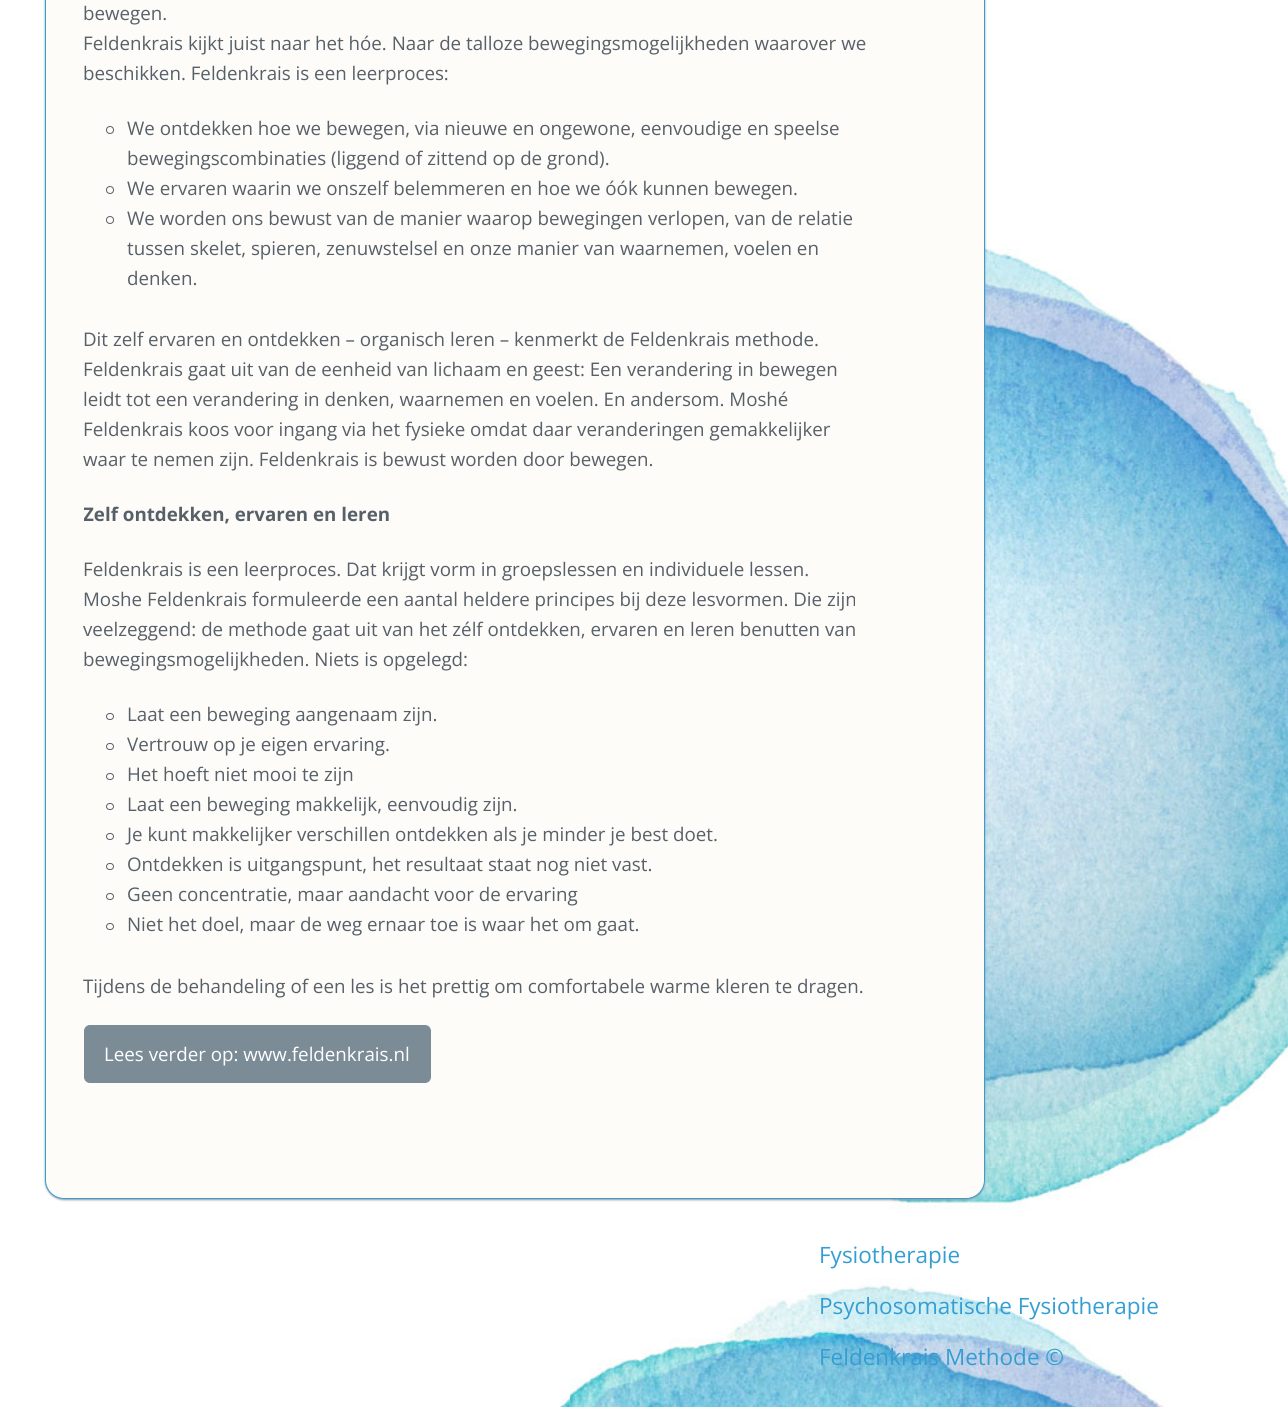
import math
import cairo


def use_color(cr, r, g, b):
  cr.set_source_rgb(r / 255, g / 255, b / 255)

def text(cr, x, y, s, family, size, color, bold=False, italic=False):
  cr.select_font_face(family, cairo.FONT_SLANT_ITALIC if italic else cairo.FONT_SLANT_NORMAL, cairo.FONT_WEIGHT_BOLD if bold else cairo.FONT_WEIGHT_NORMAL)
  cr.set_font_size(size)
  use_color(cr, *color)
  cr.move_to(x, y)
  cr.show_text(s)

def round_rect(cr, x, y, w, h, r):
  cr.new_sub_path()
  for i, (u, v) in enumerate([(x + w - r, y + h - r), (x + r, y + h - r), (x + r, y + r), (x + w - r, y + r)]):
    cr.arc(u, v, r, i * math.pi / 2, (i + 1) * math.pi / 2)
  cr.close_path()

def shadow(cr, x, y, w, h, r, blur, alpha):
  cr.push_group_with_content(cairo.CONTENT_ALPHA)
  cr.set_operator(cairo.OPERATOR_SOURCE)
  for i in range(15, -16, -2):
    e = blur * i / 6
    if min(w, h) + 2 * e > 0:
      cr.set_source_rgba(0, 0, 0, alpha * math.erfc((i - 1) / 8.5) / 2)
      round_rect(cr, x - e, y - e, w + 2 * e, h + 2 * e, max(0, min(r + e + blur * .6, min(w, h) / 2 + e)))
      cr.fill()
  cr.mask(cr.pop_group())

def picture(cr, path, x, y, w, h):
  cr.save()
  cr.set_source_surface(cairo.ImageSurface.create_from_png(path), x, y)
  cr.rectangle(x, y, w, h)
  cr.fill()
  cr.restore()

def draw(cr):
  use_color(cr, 255, 255, 255)
  cr.paint()
  picture(cr, "img_01.png", 440, 229, 848, 1178)
  use_color(cr, 153, 153, 153)
  shadow(cr, 45, -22, 940, 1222, 19, 1, 1)
  use_color(cr, 254, 252, 249)
  round_rect(cr, 45.5, -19.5, 939, 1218, 18.5)
  cr.fill_preserve()
  use_color(cr, 52, 158, 212)
  cr.set_line_width(1)
  cr.stroke()
  cr.arc(110, 130, 3.5, 0, 2 * math.pi)
  use_color(cr, 87, 96, 105)
  cr.stroke()
  cr.arc(110, 190, 3.5, 0, 2 * math.pi)
  cr.stroke()
  cr.arc(110, 220, 3.5, 0, 2 * math.pi)
  cr.stroke()
  round_rect(cr, 106.5, 713.5, 7, 6, 3)
  cr.stroke()
  round_rect(cr, 106.5, 743.5, 7, 6, 3)
  cr.stroke()
  round_rect(cr, 106.5, 773.5, 7, 6, 3)
  cr.stroke()
  round_rect(cr, 106.5, 803.5, 7, 6, 3)
  cr.stroke()
  round_rect(cr, 106.5, 833.5, 7, 6, 3)
  cr.stroke()
  round_rect(cr, 106.5, 863.5, 7, 6, 3)
  cr.stroke()
  round_rect(cr, 106.5, 893.5, 7, 6, 3)
  cr.stroke()
  round_rect(cr, 106.5, 923.5, 7, 6, 3)
  cr.stroke()
  use_color(cr, 124, 140, 151)
  round_rect(cr, 84.5, 1025.5, 346, 57, 5.5)
  cr.fill_preserve()
  cr.stroke()
  text(cr, 83, 20, "bewegen.", "Open Sans", 18.75, (87, 96, 105))
  text(cr, 83, 50, "Feldenkrais kijkt juist naar het hóe. Naar de talloze bewegingsmogelijkheden waarover we", "Open Sans", 18.75, (87, 96, 105))
  text(cr, 83, 80, "beschikken. Feldenkrais is een leerproces:", "Open Sans", 18.75, (87, 96, 105))
  text(cr, 127, 135, "We ontdekken hoe we bewegen, via nieuwe en ongewone, eenvoudige en speelse", "Open Sans", 18.75, (87, 96, 105))
  text(cr, 127, 165, "bewegingscombinaties (liggend of zittend op de grond).", "Open Sans", 18.75, (87, 96, 105))
  text(cr, 127, 195, "We ervaren waarin we onszelf belemmeren en hoe we óók kunnen bewegen.", "Open Sans", 18.75, (87, 96, 105))
  text(cr, 127, 225, "We worden ons bewust van de manier waarop bewegingen verlopen, van de relatie", "Open Sans", 18.75, (87, 96, 105))
  text(cr, 127, 255, "tussen skelet, spieren, zenuwstelsel en onze manier van waarnemen, voelen en", "Open Sans", 18.75, (87, 96, 105))
  text(cr, 127, 285, "denken.", "Open Sans", 18.75, (87, 96, 105))
  text(cr, 83, 346, "Dit zelf ervaren en ontdekken – organisch leren – kenmerkt de Feldenkrais methode.", "Open Sans", 18.75, (87, 96, 105))
  text(cr, 83, 376, "Feldenkrais gaat uit van de eenheid van lichaam en geest: Een verandering in bewegen", "Open Sans", 18.75, (87, 96, 105))
  text(cr, 83, 406, "leidt tot een verandering in denken, waarnemen en voelen. En andersom. Moshé", "Open Sans", 18.75, (87, 96, 105))
  text(cr, 83, 436, "Feldenkrais koos voor ingang via het fysieke omdat daar veranderingen gemakkelijker", "Open Sans", 18.75, (87, 96, 105))
  text(cr, 83, 466, "waar te nemen zijn. Feldenkrais is bewust worden door bewegen.", "Open Sans", 18.75, (87, 96, 105))
  cr.save()
  cr.rectangle(84, 0, 787, 1135)
  cr.clip()
  text(cr, 83, 521, "Zelf ontdekken, ervaren en leren", "Open Sans", 18.75, (87, 96, 105), bold=True)
  cr.restore()
  text(cr, 83, 576, "Feldenkrais is een leerproces. Dat krijgt vorm in groepslessen en individuele lessen.", "Open Sans", 18.75, (87, 96, 105))
  text(cr, 83, 606, "Moshe Feldenkrais formuleerde een aantal heldere principes bij deze lesvormen. Die zijn", "Open Sans", 18.75, (87, 96, 105))
  text(cr, 83, 636, "veelzeggend: de methode gaat uit van het zélf ontdekken, ervaren en leren benutten van", "Open Sans", 18.75, (87, 96, 105))
  text(cr, 83, 666, "bewegingsmogelijkheden. Niets is opgelegd:", "Open Sans", 18.75, (87, 96, 105))
  text(cr, 127, 721, "Laat een beweging aangenaam zijn.", "Open Sans", 18.75, (87, 96, 105))
  text(cr, 127, 751, "Vertrouw op je eigen ervaring.", "Open Sans", 18.75, (87, 96, 105))
  text(cr, 127, 781, "Het hoeft niet mooi te zijn", "Open Sans", 18.75, (87, 96, 105))
  text(cr, 127, 811, "Laat een beweging makkelijk, eenvoudig zijn.", "Open Sans", 18.75, (87, 96, 105))
  text(cr, 127, 841, "Je kunt makkelijker verschillen ontdekken als je minder je best doet.", "Open Sans", 18.75, (87, 96, 105))
  text(cr, 127, 871, "Ontdekken is uitgangspunt, het resultaat staat nog niet vast.", "Open Sans", 18.75, (87, 96, 105))
  text(cr, 127, 901, "Geen concentratie, maar aandacht voor de ervaring", "Open Sans", 18.75, (87, 96, 105))
  text(cr, 127, 931, "Niet het doel, maar de weg ernaar toe is waar het om gaat.", "Open Sans", 18.75, (87, 96, 105))
  text(cr, 83, 993, "Tijdens de behandeling of een les is het prettig om comfortabele warme kleren te dragen.", "Open Sans", 18.75, (87, 96, 105))
  text(cr, 104, 1061, "Lees verder op: www.feldenkrais.nl", "Open Sans", 18.75, (255, 255, 255))
  text(cr, 819, 1263, "Fysiotherapie", "Open Sans", 22.5, (52, 158, 212))
  text(cr, 819, 1314, "Psychosomatische Fysiotherapie", "Open Sans", 22.5, (52, 158, 212))
  text(cr, 819, 1365, "Feldenkrais Methode ©", "Open Sans", 22.5, (52, 158, 212))


surface = cairo.ImageSurface(cairo.FORMAT_RGB24, 1288, 1407)
cr = cairo.Context(surface)
options = cairo.FontOptions()
options.set_hint_metrics(cairo.HINT_METRICS_OFF)
options.set_hint_style(cairo.HINT_STYLE_NONE)
cr.set_font_options(options)
cr.set_miter_limit(4)
draw(cr)
surface.write_to_png("out.png")
